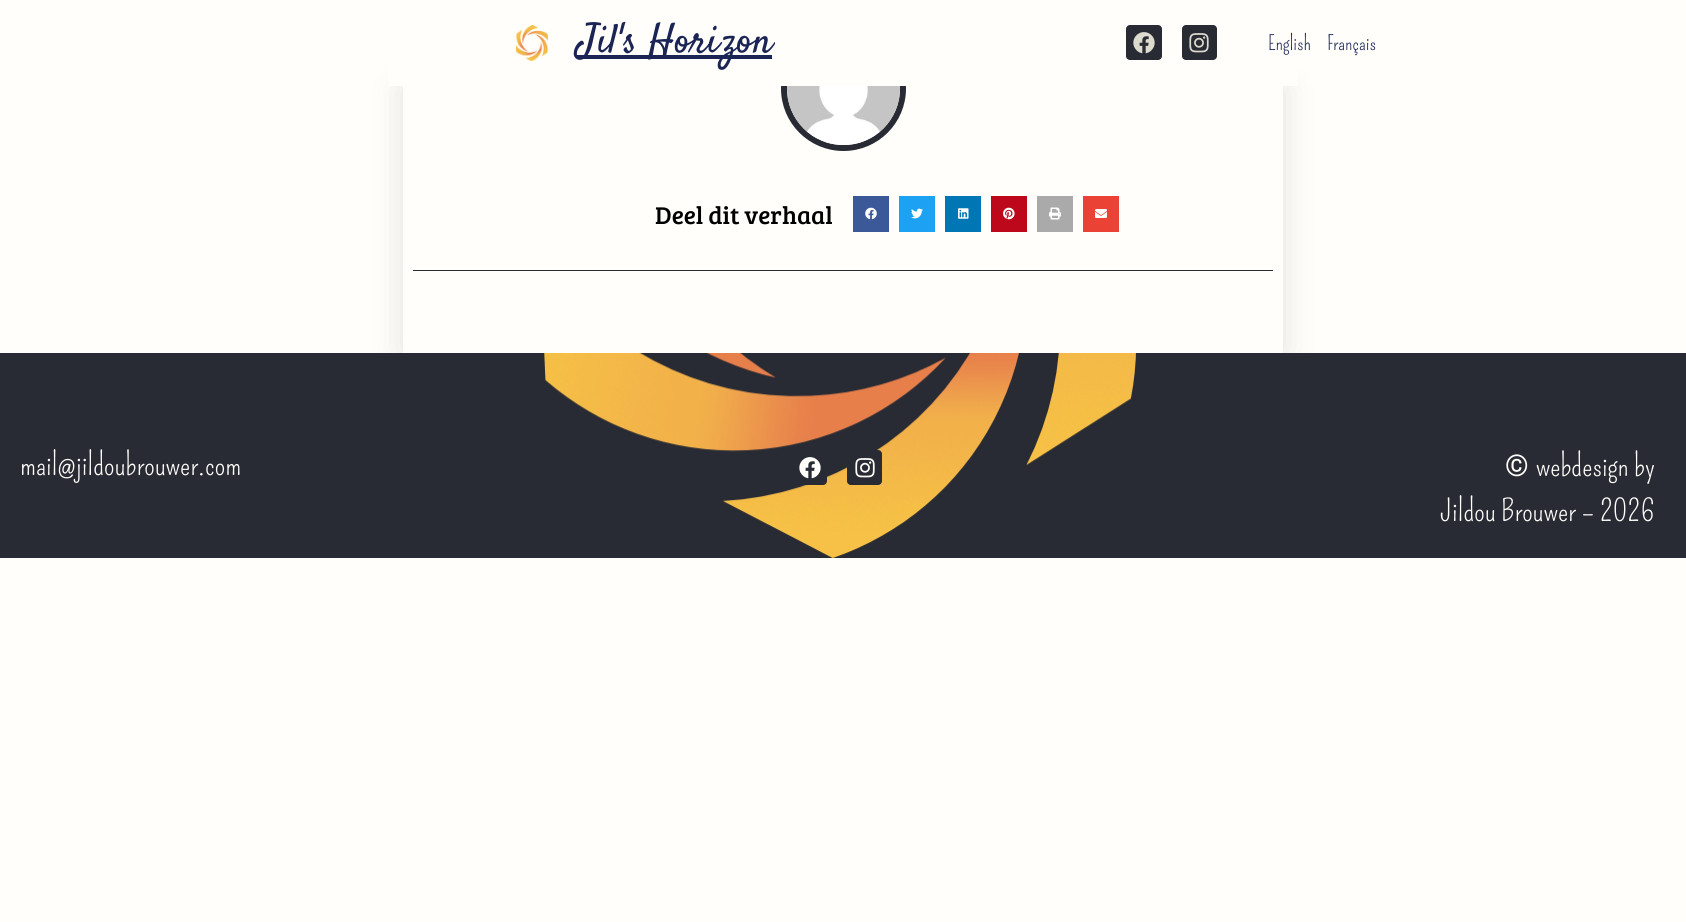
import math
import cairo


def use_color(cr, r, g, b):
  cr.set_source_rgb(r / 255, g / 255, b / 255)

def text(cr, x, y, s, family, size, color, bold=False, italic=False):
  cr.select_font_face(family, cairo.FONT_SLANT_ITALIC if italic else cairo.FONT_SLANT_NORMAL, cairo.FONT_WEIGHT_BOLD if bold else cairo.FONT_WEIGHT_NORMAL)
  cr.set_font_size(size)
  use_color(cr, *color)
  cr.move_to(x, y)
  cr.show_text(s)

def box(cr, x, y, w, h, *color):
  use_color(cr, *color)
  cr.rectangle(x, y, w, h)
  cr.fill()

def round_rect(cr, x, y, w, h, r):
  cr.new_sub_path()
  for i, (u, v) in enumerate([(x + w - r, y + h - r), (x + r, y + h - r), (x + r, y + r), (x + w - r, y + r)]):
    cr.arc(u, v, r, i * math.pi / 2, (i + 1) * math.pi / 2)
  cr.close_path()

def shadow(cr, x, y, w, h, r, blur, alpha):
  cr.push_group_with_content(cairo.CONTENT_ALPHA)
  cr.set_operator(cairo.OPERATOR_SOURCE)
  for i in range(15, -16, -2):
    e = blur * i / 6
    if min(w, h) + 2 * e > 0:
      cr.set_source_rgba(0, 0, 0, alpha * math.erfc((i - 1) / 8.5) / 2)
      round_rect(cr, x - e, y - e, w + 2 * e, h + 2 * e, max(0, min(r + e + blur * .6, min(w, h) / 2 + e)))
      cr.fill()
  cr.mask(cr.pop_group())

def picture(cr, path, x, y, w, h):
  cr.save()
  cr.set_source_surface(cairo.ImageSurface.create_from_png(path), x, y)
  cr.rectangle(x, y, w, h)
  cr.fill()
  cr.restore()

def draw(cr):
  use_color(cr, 255, 254, 250)
  cr.paint()
  cr.save()
  cr.set_fill_rule(cairo.FILL_RULE_EVEN_ODD)
  cr.new_path()
  cr.move_to(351, 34)
  cr.line_to(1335, 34)
  cr.line_to(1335, 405)
  cr.line_to(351, 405)
  cr.close_path()
  cr.move_to(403, 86)
  cr.line_to(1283, 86)
  cr.line_to(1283, 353)
  cr.line_to(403, 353)
  cr.close_path()
  cr.clip()
  use_color(cr, 0, 0, 0)
  shadow(cr, 403, 86, 880, 267, 0, 17, 0.11)
  cr.restore()
  cr.arc(843.5, 88.5, 59.5, 0, 2 * math.pi)
  use_color(cr, 41, 43, 52)
  cr.set_line_width(6)
  cr.stroke()
  box(cr, 388, 26, 910, 60, 255, 254, 250)
  picture(cr, "img_01.png", 516, 25, 32, 36)
  box(cr, 577, 55, 195, 4, 26, 37, 86)
  use_color(cr, 41, 43, 52)
  round_rect(cr, 1126, 25, 36, 35, 4)
  cr.fill()
  picture(cr, "img_02.png", 1133, 32, 22, 22)
  round_rect(cr, 1182, 25, 35, 35, 4)
  cr.fill()
  picture(cr, "img_03.png", 1189, 33, 20, 20)
  picture(cr, "img_04.png", 787, 86, 113, 59)
  box(cr, 853, 196, 36, 36, 59, 89, 152)
  picture(cr, "img_05.png", 865, 207, 12, 13)
  box(cr, 899, 196, 36, 36, 29, 161, 242)
  picture(cr, "img_06.png", 911, 208, 12, 11)
  box(cr, 945, 196, 36, 36, 0, 119, 181)
  picture(cr, "img_07.png", 958, 208, 11, 11)
  box(cr, 991, 196, 36, 36, 189, 8, 28)
  picture(cr, "img_08.png", 1003, 207, 12, 13)
  box(cr, 1037, 196, 36, 36, 170, 170, 170)
  picture(cr, "img_09.png", 1049, 207, 12, 13)
  box(cr, 1083, 196, 36, 36, 234, 67, 53)
  picture(cr, "img_10.png", 1095, 209, 12, 9)
  box(cr, 413, 270, 860, 1, 41, 43, 52)
  box(cr, 0, 353, 1686, 205, 41, 43, 52)
  picture(cr, "img_11.png", 544, 353, 592, 205)
  round_rect(cr, 792, 450, 35, 35, 4)
  cr.fill()
  picture(cr, "img_12.png", 799, 457, 22, 22)
  round_rect(cr, 847, 450, 35, 35, 4)
  cr.fill()
  picture(cr, "img_13.png", 855, 458, 20, 20)
  text(cr, 577, 52, "Jil's Horizon", "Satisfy", 41, (26, 37, 86))
  text(cr, 1268, 50, "English", "Pompiere", 20, (26, 37, 86))
  text(cr, 1327, 50, "Français", "Pompiere", 20, (26, 37, 86))
  text(cr, 655, 224, "Deel dit verhaal", "Bree Serif", 25, (0, 0, 0))
  text(cr, 20, 475, "mail@jildoubrouwer.com", "Pompiere", 30, (255, 254, 250))
  text(cr, 1505, 476, "©", "Roboto", 30, (255, 254, 250))
  text(cr, 1536, 476, "webdesign by", "Pompiere", 30, (255, 254, 250))
  text(cr, 1440, 521, "Jildou Brouwer – 2026", "Pompiere", 30, (255, 254, 250))


surface = cairo.ImageSurface(cairo.FORMAT_RGB24, 1686, 922)
cr = cairo.Context(surface)
options = cairo.FontOptions()
options.set_hint_metrics(cairo.HINT_METRICS_OFF)
options.set_hint_style(cairo.HINT_STYLE_NONE)
cr.set_font_options(options)
cr.set_miter_limit(4)
draw(cr)
surface.write_to_png("out.png")
